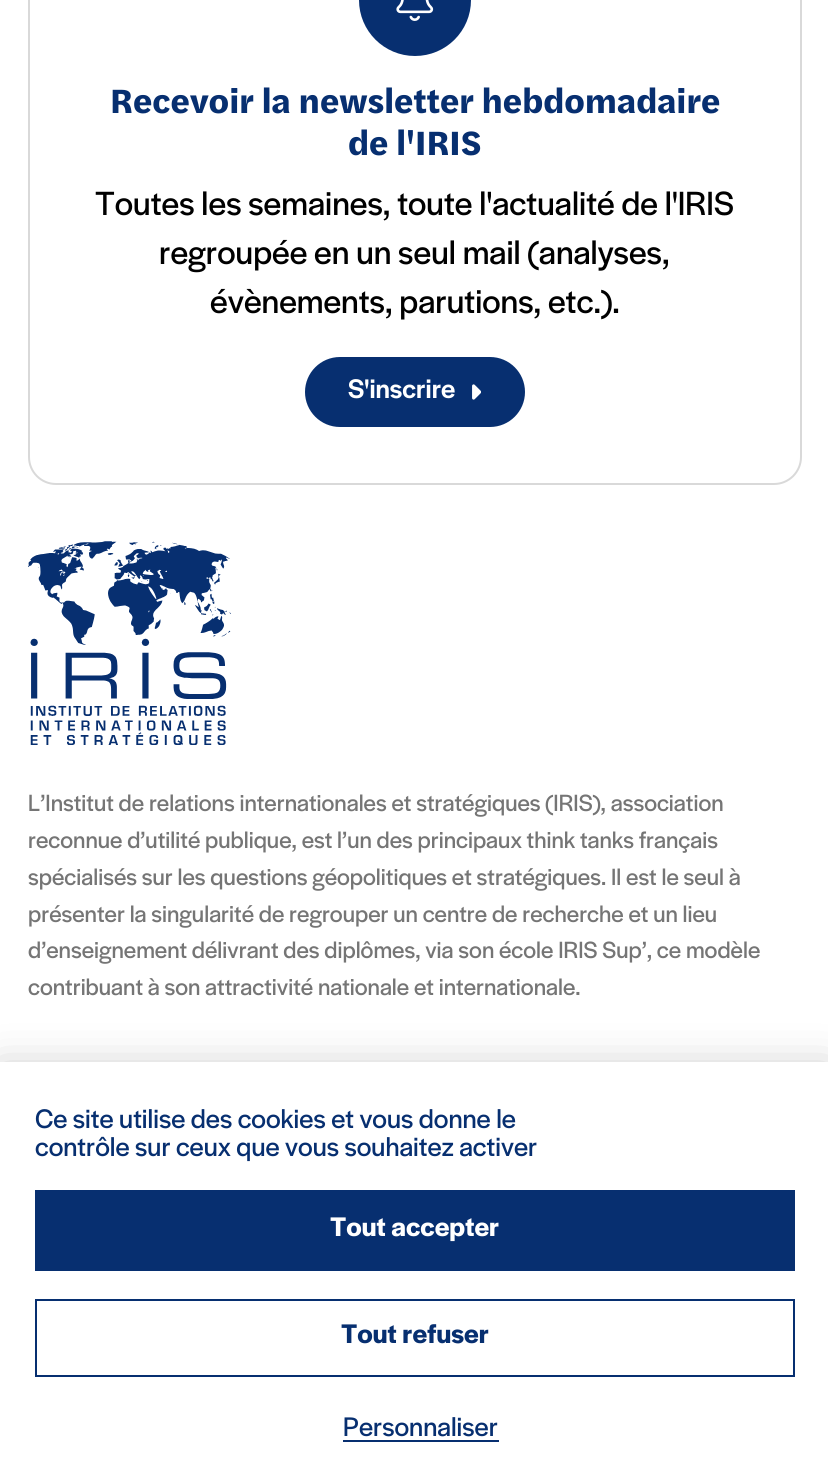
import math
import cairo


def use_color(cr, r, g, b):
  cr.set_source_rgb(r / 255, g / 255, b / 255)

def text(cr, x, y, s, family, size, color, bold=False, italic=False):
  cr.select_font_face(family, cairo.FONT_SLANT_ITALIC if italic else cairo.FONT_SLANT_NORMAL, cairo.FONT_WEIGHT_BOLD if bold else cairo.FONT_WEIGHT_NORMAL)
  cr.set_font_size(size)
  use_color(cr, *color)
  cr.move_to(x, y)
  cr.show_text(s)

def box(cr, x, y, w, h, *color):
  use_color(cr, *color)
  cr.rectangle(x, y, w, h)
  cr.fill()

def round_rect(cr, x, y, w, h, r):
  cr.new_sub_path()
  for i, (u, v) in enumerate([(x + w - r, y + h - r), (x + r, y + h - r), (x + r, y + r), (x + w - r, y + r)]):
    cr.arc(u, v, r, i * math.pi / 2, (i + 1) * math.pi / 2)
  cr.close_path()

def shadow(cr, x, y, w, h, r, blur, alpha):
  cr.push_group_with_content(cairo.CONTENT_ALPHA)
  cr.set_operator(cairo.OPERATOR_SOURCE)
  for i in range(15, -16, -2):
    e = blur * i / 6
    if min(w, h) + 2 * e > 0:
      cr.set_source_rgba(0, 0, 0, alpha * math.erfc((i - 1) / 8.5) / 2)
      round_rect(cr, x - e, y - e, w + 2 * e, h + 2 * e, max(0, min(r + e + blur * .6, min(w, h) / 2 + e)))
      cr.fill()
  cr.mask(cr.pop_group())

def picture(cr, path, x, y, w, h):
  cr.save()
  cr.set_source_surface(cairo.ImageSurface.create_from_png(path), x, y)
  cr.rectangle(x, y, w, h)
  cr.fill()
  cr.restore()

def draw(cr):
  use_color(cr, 255, 255, 255)
  cr.paint()
  round_rect(cr, 29, -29, 772, 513, 27)
  use_color(cr, 217, 217, 217)
  cr.stroke()
  use_color(cr, 7, 47, 112)
  cr.arc(415, 0, 56, 0, 2 * math.pi)
  cr.fill()
  picture(cr, "img_01.png", 396, 0, 38, 21)
  round_rect(cr, 306, 358, 218, 68, 34)
  cr.fill_preserve()
  cr.stroke()
  picture(cr, "img_02.png", 472, 384, 9, 16)
  picture(cr, "img_03.png", 28, 541, 203, 204)
  use_color(cr, 0, 0, 0)
  shadow(cr, 0, 1071, 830, 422, 0, 22, 0.25)
  box(cr, 0, 1062, 828, 421, 255, 255, 255)
  box(cr, 35, 1190, 760, 81, 7, 47, 112)
  cr.rectangle(36, 1300, 758, 76)
  cr.stroke()
  box(cr, 343, 1440, 156, 2, 7, 47, 112)
  text(cr, 110, 113, "Recevoir la newsletter hebdomadaire", "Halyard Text", 35, (7, 47, 112), bold=True)
  text(cr, 348, 155, "de l'IRIS", "Halyard Text", 35, (7, 47, 112), bold=True)
  text(cr, 95, 215, "Toutes les semaines, toute l'actualité de l'IRIS", "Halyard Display", 35, (0, 0, 0))
  text(cr, 159, 264, "regroupée en un seul mail (analyses,", "Halyard Display", 35, (0, 0, 0))
  text(cr, 210, 313, "évènements, parutions, etc.).", "Halyard Display", 35, (0, 0, 0))
  text(cr, 348, 398, "S'inscrire", "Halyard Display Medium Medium", 28, (255, 255, 255))
  text(cr, 28, 811, "L’Institut de relations internationales et stratégiques (IRIS), association", "Halyard Display", 24.5, (117, 117, 117))
  text(cr, 28, 848, "reconnue d’utilité publique, est l’un des principaux think tanks français", "Halyard Display", 24.5, (117, 117, 117))
  text(cr, 28, 885, "spécialisés sur les questions géopolitiques et stratégiques. Il est le seul à", "Halyard Display", 24.5, (117, 117, 117))
  text(cr, 28, 922, "présenter la singularité de regrouper un centre de recherche et un lieu", "Halyard Display", 24.5, (117, 117, 117))
  text(cr, 28, 958, "d’enseignement délivrant des diplômes, via son école IRIS Sup’, ce modèle", "Halyard Display", 24.5, (117, 117, 117))
  text(cr, 28, 995, "contribuant à son attractivité nationale et internationale.", "Halyard Display", 24.5, (117, 117, 117))
  text(cr, 35, 1128, "Ce site utilise des cookies et vous donne le", "Halyard Display", 28, (7, 47, 112))
  text(cr, 35, 1156, "contrôle sur ceux que vous souhaitez activer", "Halyard Display", 28, (7, 47, 112))
  text(cr, 330, 1236, "Tout accepter", "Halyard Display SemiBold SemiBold", 28, (255, 255, 255))
  text(cr, 341, 1343, "Tout refuser", "Halyard Display SemiBold SemiBold", 28, (7, 47, 112))
  text(cr, 343, 1436, "Personnaliser", "Halyard Display", 28, (7, 47, 112))


surface = cairo.ImageSurface(cairo.FORMAT_RGB24, 828, 1483)
cr = cairo.Context(surface)
options = cairo.FontOptions()
options.set_hint_metrics(cairo.HINT_METRICS_OFF)
options.set_hint_style(cairo.HINT_STYLE_NONE)
cr.set_font_options(options)
cr.set_miter_limit(4)
draw(cr)
surface.write_to_png("out.png")
